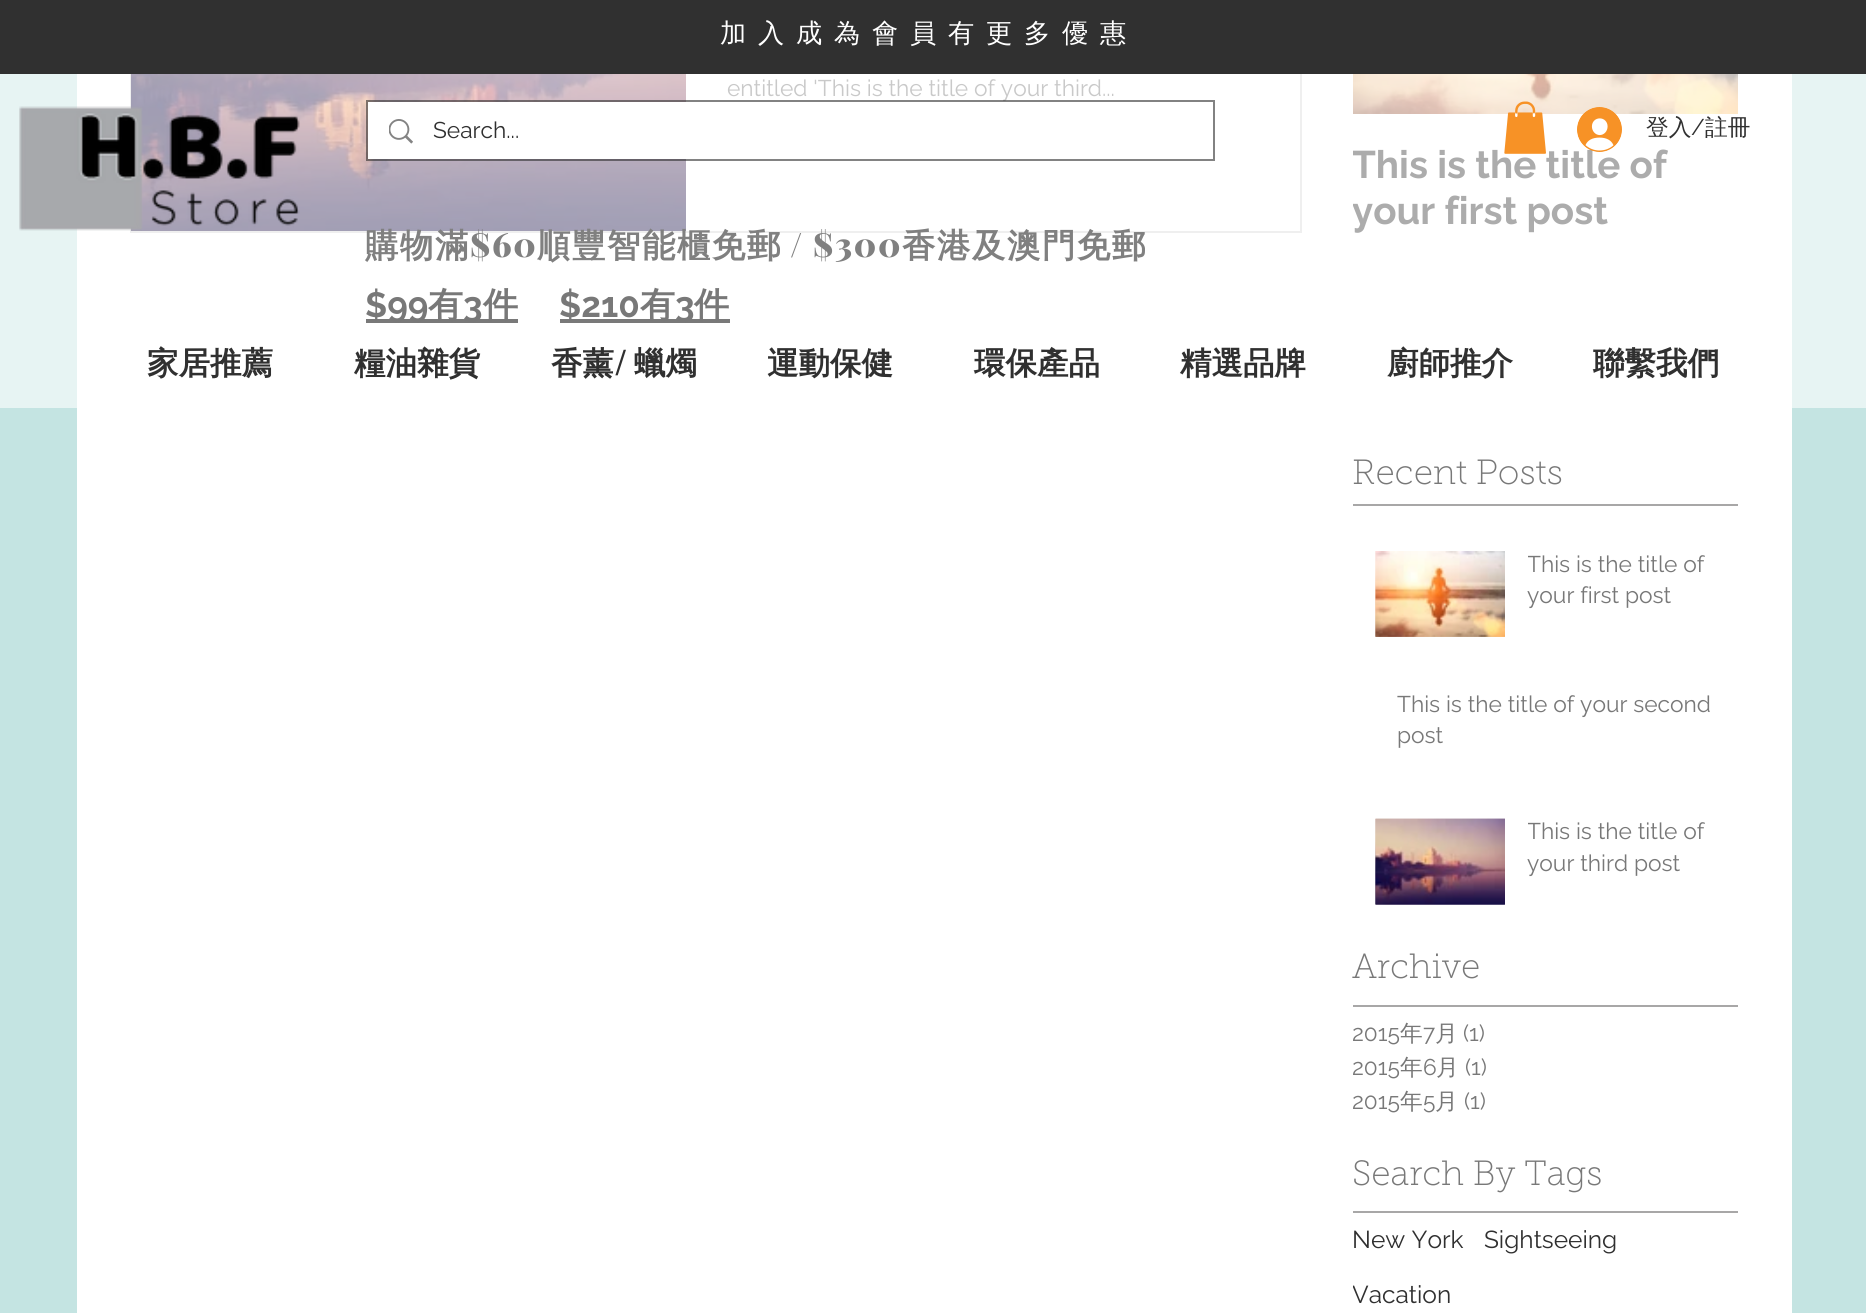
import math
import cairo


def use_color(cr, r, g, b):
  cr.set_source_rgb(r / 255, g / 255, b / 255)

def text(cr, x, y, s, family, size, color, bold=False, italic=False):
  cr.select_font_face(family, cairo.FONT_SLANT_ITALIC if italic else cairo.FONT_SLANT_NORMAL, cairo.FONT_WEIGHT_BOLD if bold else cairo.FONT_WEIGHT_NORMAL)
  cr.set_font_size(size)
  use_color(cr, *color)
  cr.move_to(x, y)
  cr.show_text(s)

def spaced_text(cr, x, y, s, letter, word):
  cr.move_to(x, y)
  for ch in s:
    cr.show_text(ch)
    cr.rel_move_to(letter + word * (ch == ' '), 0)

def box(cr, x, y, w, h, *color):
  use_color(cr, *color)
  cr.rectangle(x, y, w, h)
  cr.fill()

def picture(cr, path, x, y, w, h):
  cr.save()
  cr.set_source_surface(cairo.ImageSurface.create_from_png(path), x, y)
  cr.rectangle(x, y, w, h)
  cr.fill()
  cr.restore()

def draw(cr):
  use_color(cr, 196, 228, 226)
  cr.paint()
  box(cr, 0, 74, 1866, 334, 231, 244, 243)
  box(cr, 77, 74, 1715, 1239, 255, 255, 255)
  cr.rectangle(131, -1, 1170, 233)
  use_color(cr, 239, 239, 239)
  cr.stroke()
  box(cr, 0, 0, 1866, 74, 48, 48, 48)
  picture(cr, "img_05.png", 131, 74, 555, 157)
  picture(cr, "img_01.png", 19, 106, 281, 125)
  box(cr, 366, 319, 152, 4, 121, 121, 121)
  box(cr, 560, 319, 170, 4, 121, 121, 121)
  picture(cr, "img_06.png", 1353, 74, 385, 40)
  box(cr, 1353, 504, 385, 2, 168, 167, 167)
  picture(cr, "img_07.png", 1375, 551, 130, 86)
  picture(cr, "img_08.png", 1375, 551, 130, 86)
  picture(cr, "img_09.png", 1375, 818, 130, 87)
  picture(cr, "img_10.png", 1375, 818, 130, 87)
  box(cr, 1353, 1005, 385, 2, 168, 167, 167)
  box(cr, 1353, 1211, 385, 2, 168, 167, 167)
  cr.select_font_face("WenQuanYi Zen Hei Medium")
  cr.set_font_size(26.25)
  use_color(cr, 255, 255, 255)
  spaced_text(cr, 720, 42, "加入成為會員有更多優惠", 11.75, 0)
  text(cr, 1646, 135, "登入", "WenQuanYi Zen Hei Medium", 22.75, (48, 48, 48))
  text(cr, 1691, 135, "/", "Raleway", 22.75, (48, 48, 48))
  text(cr, 1705, 135, "註冊", "WenQuanYi Zen Hei Medium", 22.75, (48, 48, 48))
  cr.select_font_face("WenQuanYi Zen Hei", cairo.FONT_SLANT_NORMAL, cairo.FONT_WEIGHT_BOLD)
  cr.set_font_size(33.25)
  use_color(cr, 128, 128, 128)
  spaced_text(cr, 365, 257, "購物滿", 1.75, 0)
  cr.select_font_face("Playfair Display Black")
  spaced_text(cr, 470, 257, "$60", 1.75, 0)
  cr.select_font_face("WenQuanYi Zen Hei", cairo.FONT_SLANT_NORMAL, cairo.FONT_WEIGHT_BOLD)
  spaced_text(cr, 537, 257, "順豐智能櫃免郵", 1.75, 0)
  cr.select_font_face("Playfair Display Black")
  spaced_text(cr, 790, 257, "/ $300", 1.75, 0)
  cr.select_font_face("WenQuanYi Zen Hei", cairo.FONT_SLANT_NORMAL, cairo.FONT_WEIGHT_BOLD)
  spaced_text(cr, 902, 257, "香港及澳門免郵", 1.75, 0)
  text(cr, 365, 317, "$99", "Raleway", 35, (120, 120, 120), bold=True)
  text(cr, 428, 317, "有", "WenQuanYi Zen Hei", 35, (120, 120, 120), bold=True)
  text(cr, 463, 317, "3", "Raleway", 35, (120, 120, 120), bold=True)
  text(cr, 483, 317, "件", "WenQuanYi Zen Hei", 35, (120, 120, 120), bold=True)
  text(cr, 559, 317, "$210", "Raleway", 35, (120, 120, 120), bold=True)
  text(cr, 640, 317, "有", "WenQuanYi Zen Hei", 35, (120, 120, 120), bold=True)
  text(cr, 675, 317, "3", "Raleway", 35, (120, 120, 120), bold=True)
  text(cr, 694, 317, "件", "WenQuanYi Zen Hei", 35, (120, 120, 120), bold=True)
  text(cr, 147, 374, "家居推薦", "WenQuanYi Zen Hei", 31.5, (48, 48, 48), bold=True)
  text(cr, 354, 374, "糧油雜貨", "WenQuanYi Zen Hei", 31.5, (48, 48, 48), bold=True)
  text(cr, 551, 374, "香薰", "WenQuanYi Zen Hei", 31.5, (48, 48, 48), bold=True)
  text(cr, 614, 374, "/", "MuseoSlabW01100", 31.5, (48, 48, 48), bold=True)
  text(cr, 634, 374, "蠟燭", "WenQuanYi Zen Hei", 31.5, (48, 48, 48), bold=True)
  text(cr, 767, 374, "運動保健", "WenQuanYi Zen Hei", 31.5, (48, 48, 48), bold=True)
  text(cr, 974, 374, "環保產品", "WenQuanYi Zen Hei", 31.5, (48, 48, 48), bold=True)
  text(cr, 1180, 374, "精選品牌", "WenQuanYi Zen Hei", 31.5, (48, 48, 48), bold=True)
  text(cr, 1387, 374, "廚師推介", "WenQuanYi Zen Hei", 31.5, (48, 48, 48), bold=True)
  text(cr, 1593, 374, "聯繫我們", "WenQuanYi Zen Hei", 31.5, (48, 48, 48), bold=True)
  text(cr, 727, 96, "entitled 'This is the title of your third...", "Raleway", 22.75, (201, 201, 201))
  cr.rectangle(367, 101, 847, 59)
  cr.set_source_rgba(0.188, 0.188, 0.188, 0.6)
  cr.stroke()
  box(cr, 368, 102, 318, 57, 255, 255, 255)
  text(cr, 433, 138, "Search...", "Raleway", 22.75, (48, 48, 48))
  picture(cr, "img_02.png", 389, 119, 24, 25)
  cr.save()
  cr.rectangle(1353, 142, 385, 91)
  cr.clip()
  text(cr, 1352, 178, "This is the title of", "Raleway", 38.5, (172, 172, 172), bold=True)
  cr.restore()
  picture(cr, "img_04.png", 1577, 107, 45, 45)
  picture(cr, "img_03.png", 1504, 101, 42, 53)
  cr.save()
  cr.rectangle(1353, 142, 385, 91)
  cr.clip()
  text(cr, 1352, 224, "your first post", "Raleway", 38.5, (172, 172, 172), bold=True)
  cr.restore()
  text(cr, 1352, 484, "Recent Posts", "MuseoSlabW01100 Thin", 35, (120, 120, 120))
  cr.save()
  cr.rectangle(1528, 550, 189, 63)
  cr.clip()
  text(cr, 1527, 572, "This is the title of", "Raleway", 22.75, (120, 120, 120))
  cr.restore()
  text(cr, 1527, 603, "your first post", "Raleway", 22.75, (120, 120, 120))
  text(cr, 1397, 712, "This is the title of your second", "Raleway", 22.75, (120, 120, 120))
  text(cr, 1397, 743, "post", "Raleway", 22.75, (120, 120, 120))
  cr.save()
  cr.rectangle(1528, 817, 189, 63)
  cr.clip()
  text(cr, 1527, 839, "This is the title of", "Raleway", 22.75, (120, 120, 120))
  cr.restore()
  text(cr, 1527, 871, "your third post", "Raleway", 22.75, (120, 120, 120))
  text(cr, 1352, 978, "Archive", "MuseoSlabW01100 Thin", 35, (120, 120, 120))
  text(cr, 1352, 1041, "2015", "Raleway", 22.75, (120, 120, 120))
  text(cr, 1400, 1041, "年", "WenQuanYi Zen Hei Medium", 22.75, (120, 120, 120))
  text(cr, 1423, 1041, "7", "Raleway", 22.75, (120, 120, 120))
  text(cr, 1435, 1041, "月", "WenQuanYi Zen Hei Medium", 22.75, (120, 120, 120))
  text(cr, 1463, 1041, "(1)", "Raleway", 22.75, (120, 120, 120))
  text(cr, 1352, 1075, "2015", "Raleway", 22.75, (120, 120, 120))
  text(cr, 1400, 1075, "年", "WenQuanYi Zen Hei Medium", 22.75, (120, 120, 120))
  text(cr, 1423, 1075, "6", "Raleway", 22.75, (120, 120, 120))
  text(cr, 1436, 1075, "月", "WenQuanYi Zen Hei Medium", 22.75, (120, 120, 120))
  text(cr, 1465, 1075, "(1)", "Raleway", 22.75, (120, 120, 120))
  text(cr, 1352, 1109, "2015", "Raleway", 22.75, (120, 120, 120))
  text(cr, 1400, 1109, "年", "WenQuanYi Zen Hei Medium", 22.75, (120, 120, 120))
  text(cr, 1423, 1109, "5", "Raleway", 22.75, (120, 120, 120))
  text(cr, 1435, 1109, "月", "WenQuanYi Zen Hei Medium", 22.75, (120, 120, 120))
  text(cr, 1464, 1109, "(1)", "Raleway", 22.75, (120, 120, 120))
  text(cr, 1352, 1185, "Search By Tags", "MuseoSlabW01100 Thin", 35, (120, 120, 120))
  text(cr, 1352, 1248, "New York", "Raleway", 24.5, (48, 48, 48))
  text(cr, 1484, 1248, "Sightseeing", "Raleway", 24.5, (48, 48, 48))
  cr.save()
  cr.rectangle(1353, 1279, 98, 34)
  cr.clip()
  text(cr, 1352, 1303, "Vacation", "Raleway", 24.5, (48, 48, 48))
  cr.restore()


surface = cairo.ImageSurface(cairo.FORMAT_RGB24, 1866, 1313)
cr = cairo.Context(surface)
options = cairo.FontOptions()
options.set_hint_metrics(cairo.HINT_METRICS_OFF)
options.set_hint_style(cairo.HINT_STYLE_NONE)
cr.set_font_options(options)
cr.set_miter_limit(4)
draw(cr)
surface.write_to_png("out.png")
